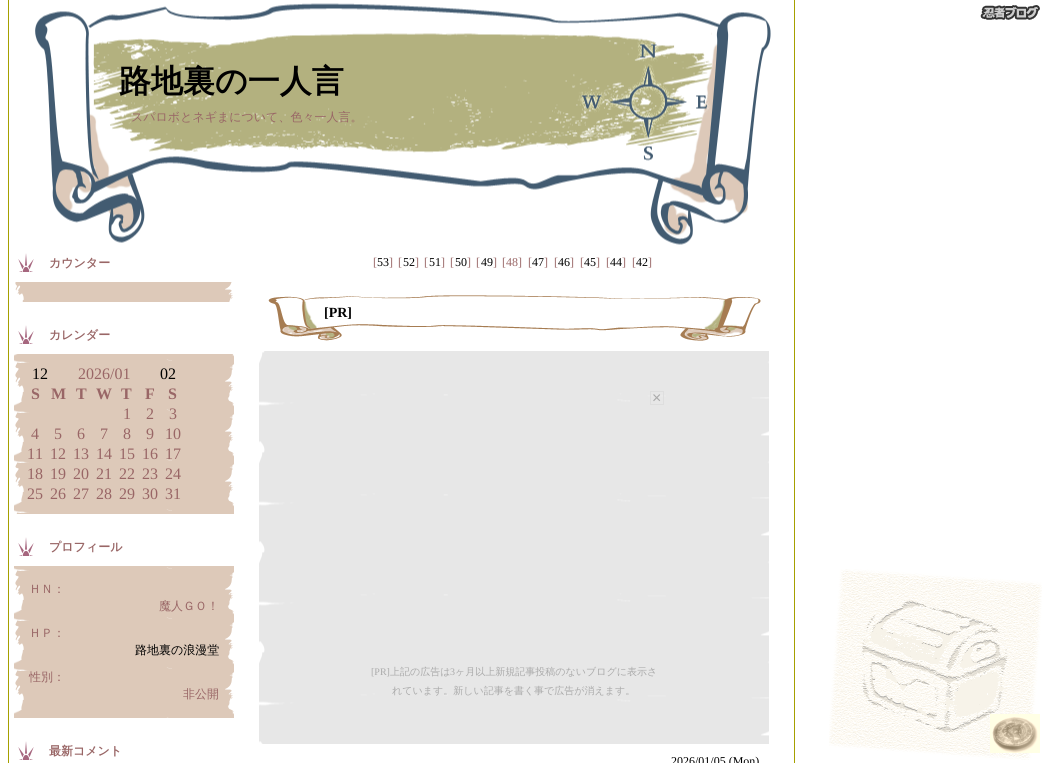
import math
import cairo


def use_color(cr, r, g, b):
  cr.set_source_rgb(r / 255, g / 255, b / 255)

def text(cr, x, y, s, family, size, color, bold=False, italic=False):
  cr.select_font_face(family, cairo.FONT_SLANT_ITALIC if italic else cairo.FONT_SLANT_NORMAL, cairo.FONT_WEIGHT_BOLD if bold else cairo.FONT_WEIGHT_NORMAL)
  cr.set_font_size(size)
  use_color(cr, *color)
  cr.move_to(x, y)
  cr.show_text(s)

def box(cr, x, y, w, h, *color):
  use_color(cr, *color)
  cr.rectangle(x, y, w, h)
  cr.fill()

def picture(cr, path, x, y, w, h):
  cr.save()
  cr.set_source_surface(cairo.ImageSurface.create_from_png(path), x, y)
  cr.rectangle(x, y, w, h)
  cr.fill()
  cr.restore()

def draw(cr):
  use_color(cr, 255, 255, 255)
  cr.paint()
  picture(cr, "img_01.png", 829, 569, 213, 191)
  picture(cr, "img_02.png", 980, 5, 60, 15)
  box(cr, 794, 0, 1, 763, 166, 160, 0)
  box(cr, 8, 0, 1, 763, 166, 160, 0)
  picture(cr, "img_03.png", 35, 3, 736, 242)
  picture(cr, "img_04.png", 18, 253, 16, 19)
  picture(cr, "img_05.png", 15, 282, 218, 20)
  picture(cr, "img_04.png", 18, 325, 16, 19)
  picture(cr, "img_06.png", 14, 354, 220, 160)
  picture(cr, "img_04.png", 18, 537, 16, 19)
  picture(cr, "img_07.png", 14, 566, 220, 152)
  picture(cr, "img_04.png", 18, 741, 16, 19)
  picture(cr, "img_08.png", 268, 295, 493, 46)
  picture(cr, "img_09.png", 259, 351, 510, 393)
  cr.rectangle(650.5, 391.5, 13, 13)
  use_color(cr, 222, 222, 222)
  cr.set_line_width(1)
  cr.stroke()
  text(cr, 119, 92, "路地裏の一人言", "WenQuanYi Zen Hei", 32, (0, 0, 0), bold=True)
  text(cr, 131, 121, "スパロボとネギまについて、色々一人言。", "WenQuanYi Zen Hei Medium", 12, (153, 102, 102))
  text(cr, 49, 267, "カウンター", "WenQuanYi Zen Hei", 12, (153, 102, 102), bold=True)
  text(cr, 49, 339, "カレンダー", "WenQuanYi Zen Hei", 12, (153, 102, 102), bold=True)
  text(cr, 32, 379, "12", "Liberation Serif", 16, (0, 0, 0))
  text(cr, 78, 379, "2026/01", "Liberation Serif", 16, (153, 102, 102))
  text(cr, 160, 379, "02", "Liberation Serif", 16, (0, 0, 0))
  text(cr, 31, 399, "S", "Liberation Serif", 16, (153, 102, 102), bold=True)
  text(cr, 51, 399, "M", "Liberation Serif", 16, (153, 102, 102), bold=True)
  text(cr, 76, 399, "T", "Liberation Serif", 16, (153, 102, 102), bold=True)
  text(cr, 96, 399, "W", "Liberation Serif", 16, (153, 102, 102), bold=True)
  text(cr, 121, 399, "T", "Liberation Serif", 16, (153, 102, 102), bold=True)
  text(cr, 145, 399, "F", "Liberation Serif", 16, (153, 102, 102), bold=True)
  text(cr, 168, 399, "S", "Liberation Serif", 16, (153, 102, 102), bold=True)
  text(cr, 123, 419, "1", "Liberation Serif", 16, (153, 102, 102))
  text(cr, 146, 419, "2", "Liberation Serif", 16, (153, 102, 102))
  text(cr, 169, 419, "3", "Liberation Serif", 16, (153, 102, 102))
  text(cr, 31, 439, "4", "Liberation Serif", 16, (153, 102, 102))
  text(cr, 54, 439, "5", "Liberation Serif", 16, (153, 102, 102))
  text(cr, 77, 439, "6", "Liberation Serif", 16, (153, 102, 102))
  text(cr, 100, 439, "7", "Liberation Serif", 16, (153, 102, 102))
  text(cr, 123, 439, "8", "Liberation Serif", 16, (153, 102, 102))
  text(cr, 146, 439, "9", "Liberation Serif", 16, (153, 102, 102))
  text(cr, 165, 439, "10", "Liberation Serif", 16, (153, 102, 102))
  text(cr, 27, 459, "11", "Liberation Serif", 16, (153, 102, 102))
  text(cr, 50, 459, "12", "Liberation Serif", 16, (153, 102, 102))
  text(cr, 73, 459, "13", "Liberation Serif", 16, (153, 102, 102))
  text(cr, 96, 459, "14", "Liberation Serif", 16, (153, 102, 102))
  text(cr, 119, 459, "15", "Liberation Serif", 16, (153, 102, 102))
  text(cr, 142, 459, "16", "Liberation Serif", 16, (153, 102, 102))
  text(cr, 165, 459, "17", "Liberation Serif", 16, (153, 102, 102))
  text(cr, 27, 479, "18", "Liberation Serif", 16, (153, 102, 102))
  text(cr, 50, 479, "19", "Liberation Serif", 16, (153, 102, 102))
  text(cr, 73, 479, "20", "Liberation Serif", 16, (153, 102, 102))
  text(cr, 96, 479, "21", "Liberation Serif", 16, (153, 102, 102))
  text(cr, 119, 479, "22", "Liberation Serif", 16, (153, 102, 102))
  text(cr, 142, 479, "23", "Liberation Serif", 16, (153, 102, 102))
  text(cr, 165, 479, "24", "Liberation Serif", 16, (153, 102, 102))
  text(cr, 27, 499, "25", "Liberation Serif", 16, (153, 102, 102))
  text(cr, 50, 499, "26", "Liberation Serif", 16, (153, 102, 102))
  text(cr, 73, 499, "27", "Liberation Serif", 16, (153, 102, 102))
  text(cr, 96, 499, "28", "Liberation Serif", 16, (153, 102, 102))
  text(cr, 119, 499, "29", "Liberation Serif", 16, (153, 102, 102))
  text(cr, 142, 499, "30", "Liberation Serif", 16, (153, 102, 102))
  text(cr, 165, 499, "31", "Liberation Serif", 16, (153, 102, 102))
  text(cr, 49, 551, "プロフィール", "WenQuanYi Zen Hei", 12, (153, 102, 102), bold=True)
  text(cr, 29, 593, "ＨＮ：", "WenQuanYi Zen Hei Medium", 12, (153, 102, 102))
  text(cr, 159, 610, "魔人ＧＯ！", "WenQuanYi Zen Hei Medium", 12, (153, 102, 102))
  text(cr, 29, 637, "ＨＰ：", "WenQuanYi Zen Hei Medium", 12, (153, 102, 102))
  text(cr, 135, 654, "路地裏の浪漫堂", "WenQuanYi Zen Hei Medium", 12, (0, 0, 0))
  text(cr, 29, 681, "性別：", "WenQuanYi Zen Hei Medium", 12, (153, 102, 102))
  text(cr, 183, 698, "非公開", "WenQuanYi Zen Hei Medium", 12, (153, 102, 102))
  text(cr, 49, 755, "最新コメント", "WenQuanYi Zen Hei", 12, (153, 102, 102), bold=True)
  text(cr, 373, 266, "[", "Liberation Serif", 12, (153, 102, 102))
  text(cr, 377, 266, "53", "Liberation Serif", 12, (0, 0, 0))
  text(cr, 389, 266, "]", "Liberation Serif", 12, (153, 102, 102))
  text(cr, 398, 266, "[", "Liberation Serif", 12, (153, 102, 102))
  text(cr, 403, 266, "52", "Liberation Serif", 12, (0, 0, 0))
  text(cr, 415, 266, "]", "Liberation Serif", 12, (153, 102, 102))
  text(cr, 424, 266, "[", "Liberation Serif", 12, (153, 102, 102))
  text(cr, 429, 266, "51", "Liberation Serif", 12, (0, 0, 0))
  text(cr, 441, 266, "]", "Liberation Serif", 12, (153, 102, 102))
  text(cr, 450, 266, "[", "Liberation Serif", 12, (153, 102, 102))
  text(cr, 455, 266, "50", "Liberation Serif", 12, (0, 0, 0))
  text(cr, 467, 266, "]", "Liberation Serif", 12, (153, 102, 102))
  text(cr, 476, 266, "[", "Liberation Serif", 12, (153, 102, 102))
  text(cr, 481, 266, "49", "Liberation Serif", 12, (0, 0, 0))
  text(cr, 493, 266, "]", "Liberation Serif", 12, (153, 102, 102))
  text(cr, 502, 266, "[48]", "Liberation Serif", 12, (153, 102, 102))
  text(cr, 528, 266, "[", "Liberation Serif", 12, (153, 102, 102))
  text(cr, 532, 266, "47", "Liberation Serif", 12, (0, 0, 0))
  text(cr, 544, 266, "]", "Liberation Serif", 12, (153, 102, 102))
  text(cr, 554, 266, "[", "Liberation Serif", 12, (153, 102, 102))
  text(cr, 558, 266, "46", "Liberation Serif", 12, (0, 0, 0))
  text(cr, 570, 266, "]", "Liberation Serif", 12, (153, 102, 102))
  text(cr, 580, 266, "[", "Liberation Serif", 12, (153, 102, 102))
  text(cr, 584, 266, "45", "Liberation Serif", 12, (0, 0, 0))
  text(cr, 596, 266, "]", "Liberation Serif", 12, (153, 102, 102))
  text(cr, 606, 266, "[", "Liberation Serif", 12, (153, 102, 102))
  text(cr, 610, 266, "44", "Liberation Serif", 12, (0, 0, 0))
  text(cr, 622, 266, "]", "Liberation Serif", 12, (153, 102, 102))
  text(cr, 632, 266, "[", "Liberation Serif", 12, (153, 102, 102))
  text(cr, 636, 266, "42", "Liberation Serif", 12, (0, 0, 0))
  text(cr, 648, 266, "]", "Liberation Serif", 12, (153, 102, 102))
  text(cr, 324, 317, "[PR]", "Liberation Serif", 14, (0, 0, 0), bold=True)
  text(cr, 652, 403, "×", "Liberation Sans", 16, (170, 170, 170))
  text(cr, 371, 675, "[PR]", "Liberation Serif", 10, (170, 170, 170))
  text(cr, 390, 675, "上記の広告は", "WenQuanYi Zen Hei Medium", 10, (170, 170, 170))
  text(cr, 450, 675, "3", "Liberation Serif", 10, (170, 170, 170))
  text(cr, 455, 675, "ヶ月以上新規記事投稿のないブログに表示さ", "WenQuanYi Zen Hei Medium", 10, (170, 170, 170))
  text(cr, 392, 694, "れています。新しい記事を書く事で広告が消えます。", "WenQuanYi Zen Hei Medium", 10, (170, 170, 170))
  text(cr, 671, 765, "2026/01/05 (Mon)", "Liberation Serif", 12, (0, 0, 0))


surface = cairo.ImageSurface(cairo.FORMAT_RGB24, 1045, 763)
cr = cairo.Context(surface)
options = cairo.FontOptions()
options.set_hint_metrics(cairo.HINT_METRICS_OFF)
options.set_hint_style(cairo.HINT_STYLE_NONE)
cr.set_font_options(options)
cr.set_miter_limit(4)
draw(cr)
surface.write_to_png("out.png")
